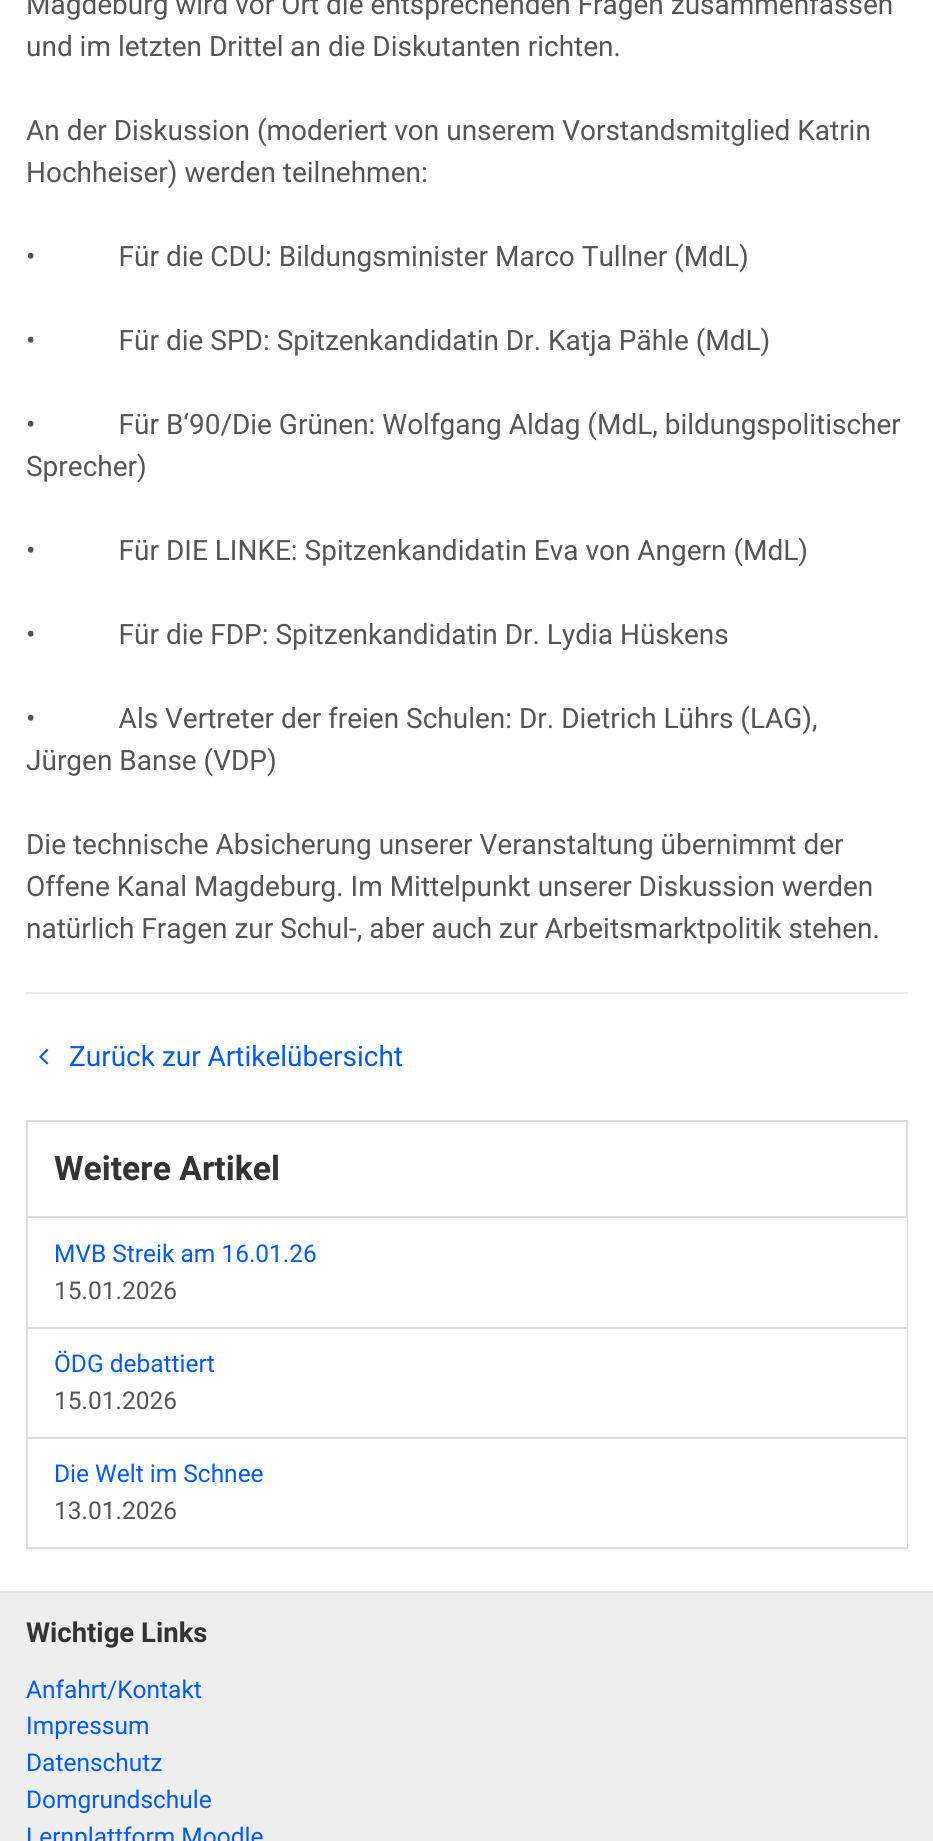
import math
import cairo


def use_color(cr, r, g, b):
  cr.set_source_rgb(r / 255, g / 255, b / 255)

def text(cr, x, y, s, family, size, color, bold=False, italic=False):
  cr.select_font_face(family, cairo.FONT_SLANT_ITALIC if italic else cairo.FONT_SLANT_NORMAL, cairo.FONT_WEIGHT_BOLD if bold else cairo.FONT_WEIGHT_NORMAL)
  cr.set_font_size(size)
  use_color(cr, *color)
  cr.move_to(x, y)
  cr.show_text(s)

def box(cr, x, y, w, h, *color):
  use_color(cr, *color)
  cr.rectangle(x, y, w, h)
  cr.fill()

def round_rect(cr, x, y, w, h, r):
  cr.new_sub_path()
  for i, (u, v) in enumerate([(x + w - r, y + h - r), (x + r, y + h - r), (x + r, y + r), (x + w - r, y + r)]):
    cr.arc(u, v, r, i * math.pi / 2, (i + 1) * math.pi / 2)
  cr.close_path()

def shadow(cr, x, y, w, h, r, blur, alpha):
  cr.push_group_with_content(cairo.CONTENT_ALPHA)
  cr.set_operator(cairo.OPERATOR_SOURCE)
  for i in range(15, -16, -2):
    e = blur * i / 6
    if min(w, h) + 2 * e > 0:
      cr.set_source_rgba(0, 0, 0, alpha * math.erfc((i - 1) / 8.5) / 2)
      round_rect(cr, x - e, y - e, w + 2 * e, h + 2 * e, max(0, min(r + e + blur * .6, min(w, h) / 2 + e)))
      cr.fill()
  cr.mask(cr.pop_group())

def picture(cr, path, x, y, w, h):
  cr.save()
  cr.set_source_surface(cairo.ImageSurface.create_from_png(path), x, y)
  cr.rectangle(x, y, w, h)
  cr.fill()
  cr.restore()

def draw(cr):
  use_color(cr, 255, 255, 255)
  cr.paint()
  box(cr, 26, 992, 882, 2, 238, 238, 238)
  picture(cr, "img_01.png", 39, 1049, 10, 16)
  use_color(cr, 0, 0, 0)
  shadow(cr, 26, 1122, 882, 429, 0, 1, 0.05)
  box(cr, 28, 1122, 878, 94, 255, 255, 255)
  cr.rectangle(27, 1121, 880, 427)
  use_color(cr, 221, 221, 221)
  cr.stroke()
  box(cr, 28, 1218, 879, 109, 255, 255, 255)
  box(cr, 28, 1216, 879, 2, 221, 221, 221)
  box(cr, 28, 1329, 879, 108, 255, 255, 255)
  box(cr, 28, 1327, 879, 2, 221, 221, 221)
  box(cr, 28, 1439, 879, 108, 255, 255, 255)
  box(cr, 28, 1437, 879, 2, 221, 221, 221)
  box(cr, 0, 1593, 933, 248, 238, 238, 238)
  box(cr, 0, 1591, 933, 2, 231, 231, 231)
  text(cr, 26, 14, "Magdeburg wird vor Ort die entsprechenden Fragen zusammenfassen", "Roboto", 28, (85, 85, 85))
  text(cr, 26, 56, "und im letzten Drittel an die Diskutanten richten.", "Roboto", 28, (85, 85, 85))
  text(cr, 26, 140, "An der Diskussion (moderiert von unserem Vorstandsmitglied Katrin", "Roboto", 28, (85, 85, 85))
  text(cr, 26, 182, "Hochheiser) werden teilnehmen:", "Roboto", 28, (85, 85, 85))
  text(cr, 26, 266, "•            Für die CDU: Bildungsminister Marco Tullner (MdL)", "Roboto", 28, (85, 85, 85))
  text(cr, 26, 350, "•            Für die SPD: Spitzenkandidatin Dr. Katja Pähle (MdL)", "Roboto", 28, (85, 85, 85))
  text(cr, 26, 434, "•            Für B‘90/Die Grünen: Wolfgang Aldag (MdL, bildungspolitischer", "Roboto", 28, (85, 85, 85))
  text(cr, 26, 476, "Sprecher)", "Roboto", 28, (85, 85, 85))
  text(cr, 26, 560, "•            Für DIE LINKE: Spitzenkandidatin Eva von Angern (MdL)", "Roboto", 28, (85, 85, 85))
  text(cr, 26, 644, "•            Für die FDP: Spitzenkandidatin Dr. Lydia Hüskens", "Roboto", 28, (85, 85, 85))
  text(cr, 26, 728, "•            Als Vertreter der freien Schulen: Dr. Dietrich Lührs (LAG),", "Roboto", 28, (85, 85, 85))
  text(cr, 26, 770, "Jürgen Banse (VDP)", "Roboto", 28, (85, 85, 85))
  text(cr, 26, 854, "Die technische Absicherung unserer Veranstaltung übernimmt der", "Roboto", 28, (85, 85, 85))
  text(cr, 26, 896, "Offene Kanal Magdeburg. Im Mittelpunkt unserer Diskussion werden", "Roboto", 28, (85, 85, 85))
  text(cr, 26, 938, "natürlich Fragen zur Schul-, aber auch zur Arbeitsmarktpolitik stehen.", "Roboto", 28, (85, 85, 85))
  text(cr, 69, 1066, "Zurück zur Artikelübersicht", "Roboto", 28, (0, 90, 255))
  text(cr, 54, 1180, "Weitere Artikel", "Roboto", 33.75, (51, 51, 51), bold=True)
  text(cr, 54, 1262, "MVB Streik am 16.01.26", "Roboto", 24.5, (0, 90, 255))
  text(cr, 54, 1299, "15.01.2026", "Roboto", 24.5, (85, 85, 85))
  text(cr, 54, 1372, "ÖDG debattiert", "Roboto", 24.5, (0, 90, 255))
  text(cr, 54, 1409, "15.01.2026", "Roboto", 24.5, (85, 85, 85))
  text(cr, 54, 1482, "Die Welt im Schnee", "Roboto", 24.5, (0, 90, 255))
  text(cr, 54, 1519, "13.01.2026", "Roboto", 24.5, (85, 85, 85))
  text(cr, 26, 1642, "Wichtige Links", "Roboto", 27.5, (51, 51, 51), bold=True)
  text(cr, 26, 1698, "Anfahrt/Kontakt", "Roboto", 24.5, (0, 90, 255))
  text(cr, 26, 1734, "Impressum", "Roboto", 24.5, (0, 90, 255))
  text(cr, 26, 1771, "Datenschutz", "Roboto", 24.5, (0, 90, 255))
  text(cr, 26, 1808, "Domgrundschule", "Roboto", 24.5, (0, 90, 255))
  text(cr, 26, 1845, "Lernplattform Moodle", "Roboto", 24.5, (0, 90, 255))


surface = cairo.ImageSurface(cairo.FORMAT_RGB24, 933, 1841)
cr = cairo.Context(surface)
options = cairo.FontOptions()
options.set_hint_metrics(cairo.HINT_METRICS_OFF)
options.set_hint_style(cairo.HINT_STYLE_NONE)
cr.set_font_options(options)
cr.set_miter_limit(4)
draw(cr)
surface.write_to_png("out.png")
